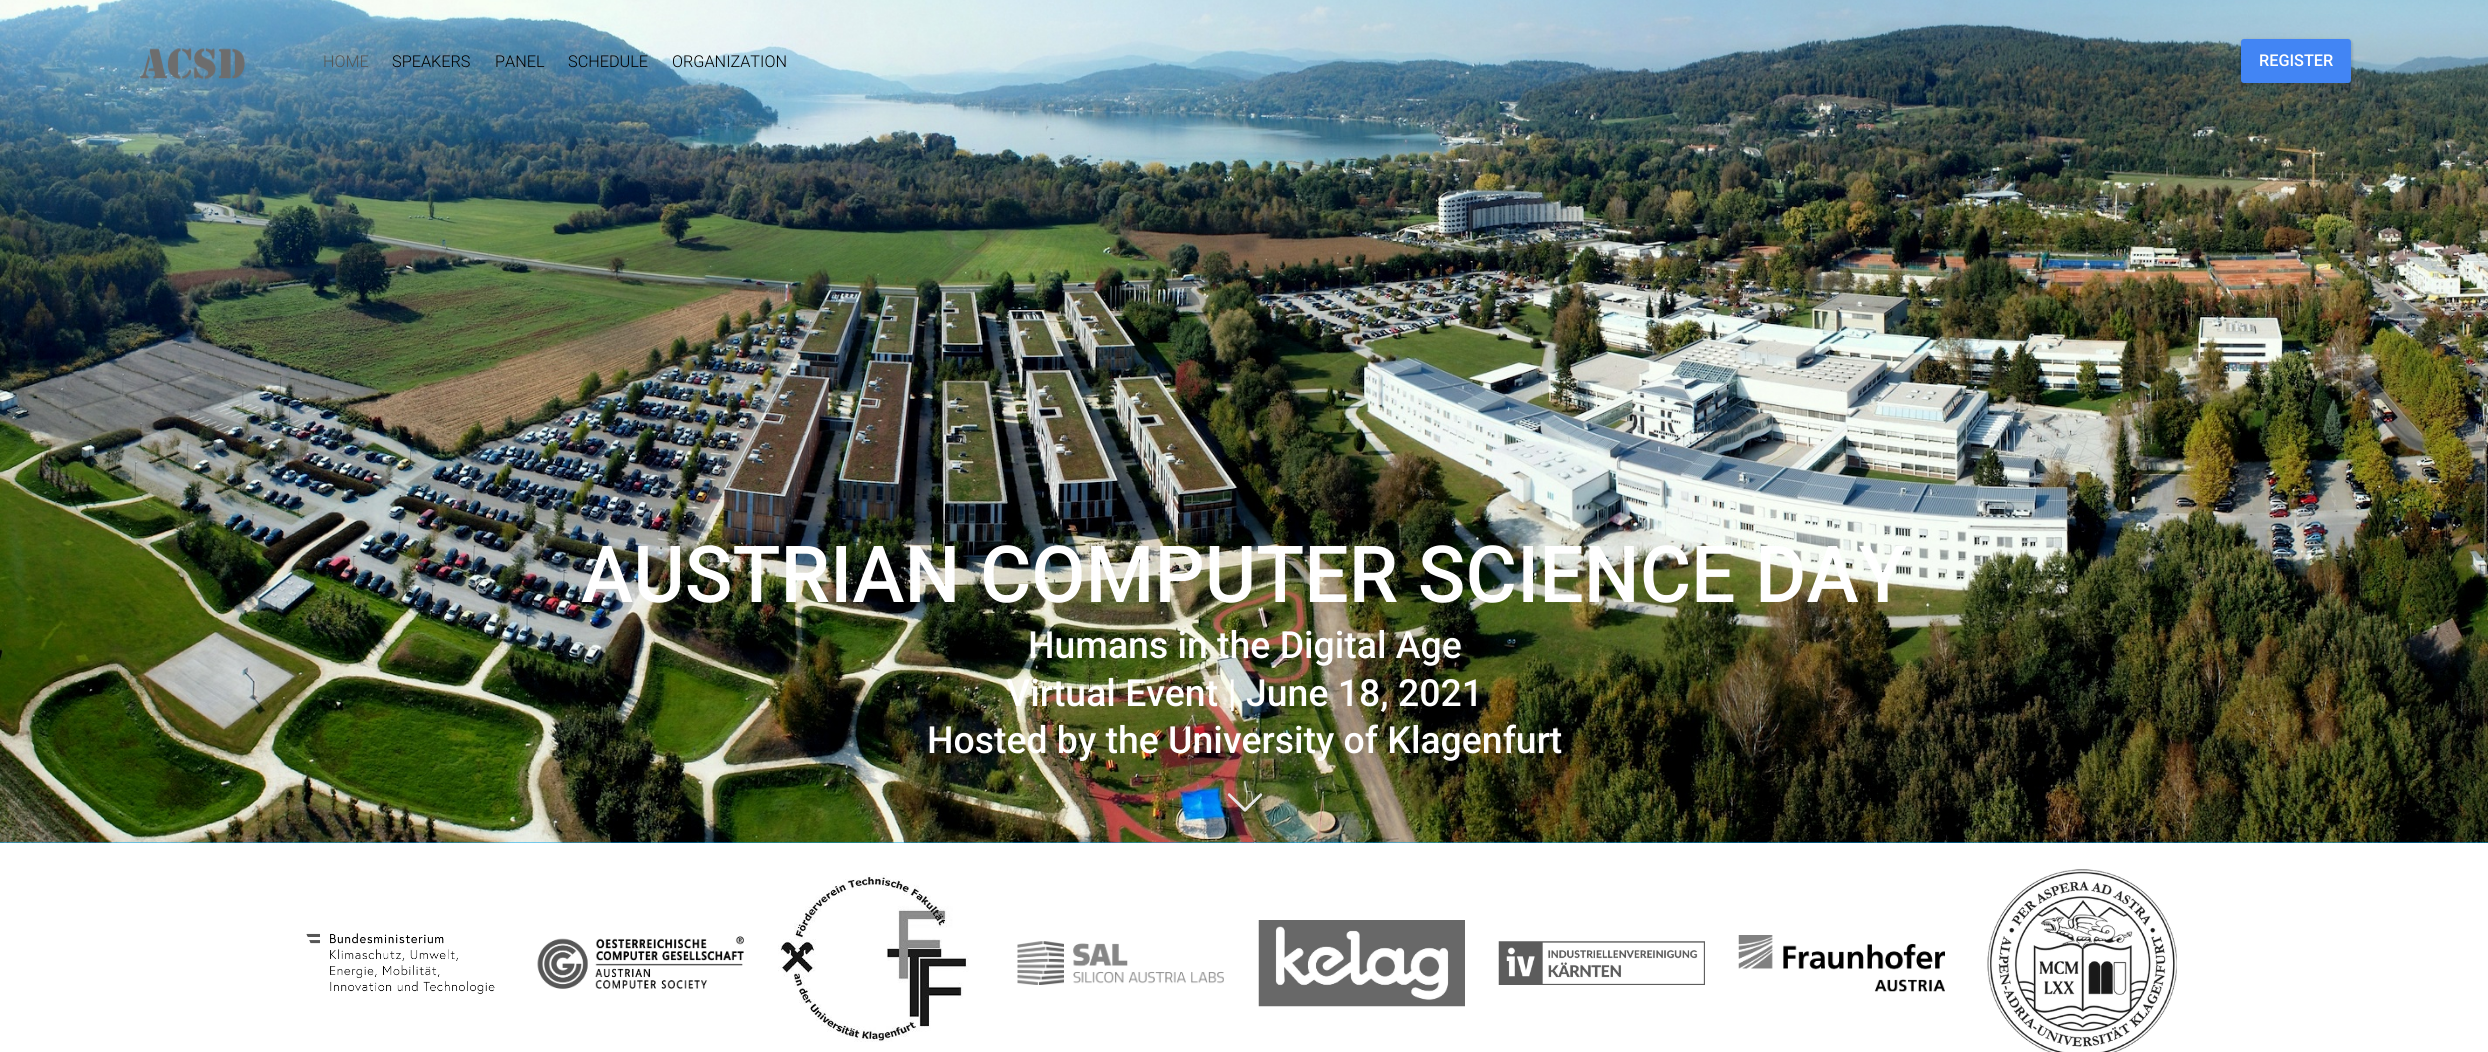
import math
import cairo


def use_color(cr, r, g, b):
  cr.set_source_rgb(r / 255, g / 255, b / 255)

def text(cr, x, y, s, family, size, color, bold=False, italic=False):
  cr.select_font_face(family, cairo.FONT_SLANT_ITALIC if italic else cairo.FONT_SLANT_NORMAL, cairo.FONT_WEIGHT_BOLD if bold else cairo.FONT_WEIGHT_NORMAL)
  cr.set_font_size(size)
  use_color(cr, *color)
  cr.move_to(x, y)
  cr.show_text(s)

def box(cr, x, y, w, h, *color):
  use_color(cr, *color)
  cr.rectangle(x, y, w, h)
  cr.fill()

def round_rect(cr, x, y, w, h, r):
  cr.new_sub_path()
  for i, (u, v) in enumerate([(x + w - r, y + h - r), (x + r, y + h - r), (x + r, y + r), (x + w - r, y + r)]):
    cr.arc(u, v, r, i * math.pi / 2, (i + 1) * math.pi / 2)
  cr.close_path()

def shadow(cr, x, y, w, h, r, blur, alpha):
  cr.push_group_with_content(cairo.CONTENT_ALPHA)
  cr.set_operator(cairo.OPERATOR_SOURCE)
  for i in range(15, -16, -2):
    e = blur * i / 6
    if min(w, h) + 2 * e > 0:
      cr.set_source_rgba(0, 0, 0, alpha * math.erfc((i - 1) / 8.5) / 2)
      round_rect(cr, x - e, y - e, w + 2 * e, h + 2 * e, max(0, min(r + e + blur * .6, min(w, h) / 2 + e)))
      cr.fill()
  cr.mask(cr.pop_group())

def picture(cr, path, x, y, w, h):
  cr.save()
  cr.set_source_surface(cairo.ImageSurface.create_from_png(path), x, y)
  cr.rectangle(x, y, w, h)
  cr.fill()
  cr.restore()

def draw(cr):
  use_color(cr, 255, 255, 255)
  cr.paint()
  box(cr, 0, 842, 2488, 1, 3, 169, 244)
  picture(cr, "img_01.png", 0, 0, 2488, 843)
  picture(cr, "img_02.png", 140, 48, 105, 32)
  use_color(cr, 0, 0, 0)
  shadow(cr, 2240, 39, 113, 46, 5, 1, 0.12)
  use_color(cr, 66, 133, 244)
  round_rect(cr, 2241, 39, 110, 44, 3)
  cr.fill()
  picture(cr, "img_03.png", 1227, 793, 36, 19)
  picture(cr, "img_04.png", 306, 933, 189, 62)
  picture(cr, "img_05.png", 537, 936, 207, 53)
  picture(cr, "img_06.png", 778, 875, 191, 167)
  picture(cr, "img_07.png", 1017, 941, 207, 44)
  picture(cr, "img_08.png", 1258, 920, 207, 87)
  picture(cr, "img_09.png", 1498, 941, 207, 44)
  picture(cr, "img_10.png", 1738, 935, 207, 57)
  picture(cr, "img_11.png", 1987, 869, 190, 183)
  text(cr, 323, 67, "HOME", "Roboto Light", 16.25, (85, 85, 85))
  text(cr, 392, 67, "SPEAKERS", "Roboto Light", 16.25, (0, 0, 0))
  text(cr, 495, 67, "PANEL", "Roboto Light", 16.25, (0, 0, 0))
  text(cr, 568, 67, "SCHEDULE", "Roboto Light", 16.25, (0, 0, 0))
  text(cr, 672, 67, "ORGANIZATION", "Roboto Light", 16.25, (0, 0, 0))
  text(cr, 2259, 66, "REGISTER", "Roboto Medium", 16.25, (255, 255, 255))
  text(cr, 581, 602, "AUSTRIAN COMPUTER SCIENCE DAY", "Roboto Medium", 78.75, (255, 255, 255))
  text(cr, 1028, 658, "Humans in the Digital Age", "Roboto Medium", 37.4, (255, 255, 255))
  text(cr, 1006, 706, "Virtual Event | June 18, 2021", "Roboto Medium", 37.4, (255, 255, 255))
  text(cr, 927, 753, "Hosted by the University of Klagenfurt", "Roboto Medium", 37.4, (255, 255, 255))


surface = cairo.ImageSurface(cairo.FORMAT_RGB24, 2488, 1052)
cr = cairo.Context(surface)
options = cairo.FontOptions()
options.set_hint_metrics(cairo.HINT_METRICS_OFF)
options.set_hint_style(cairo.HINT_STYLE_NONE)
cr.set_font_options(options)
cr.set_miter_limit(4)
draw(cr)
surface.write_to_png("out.png")
